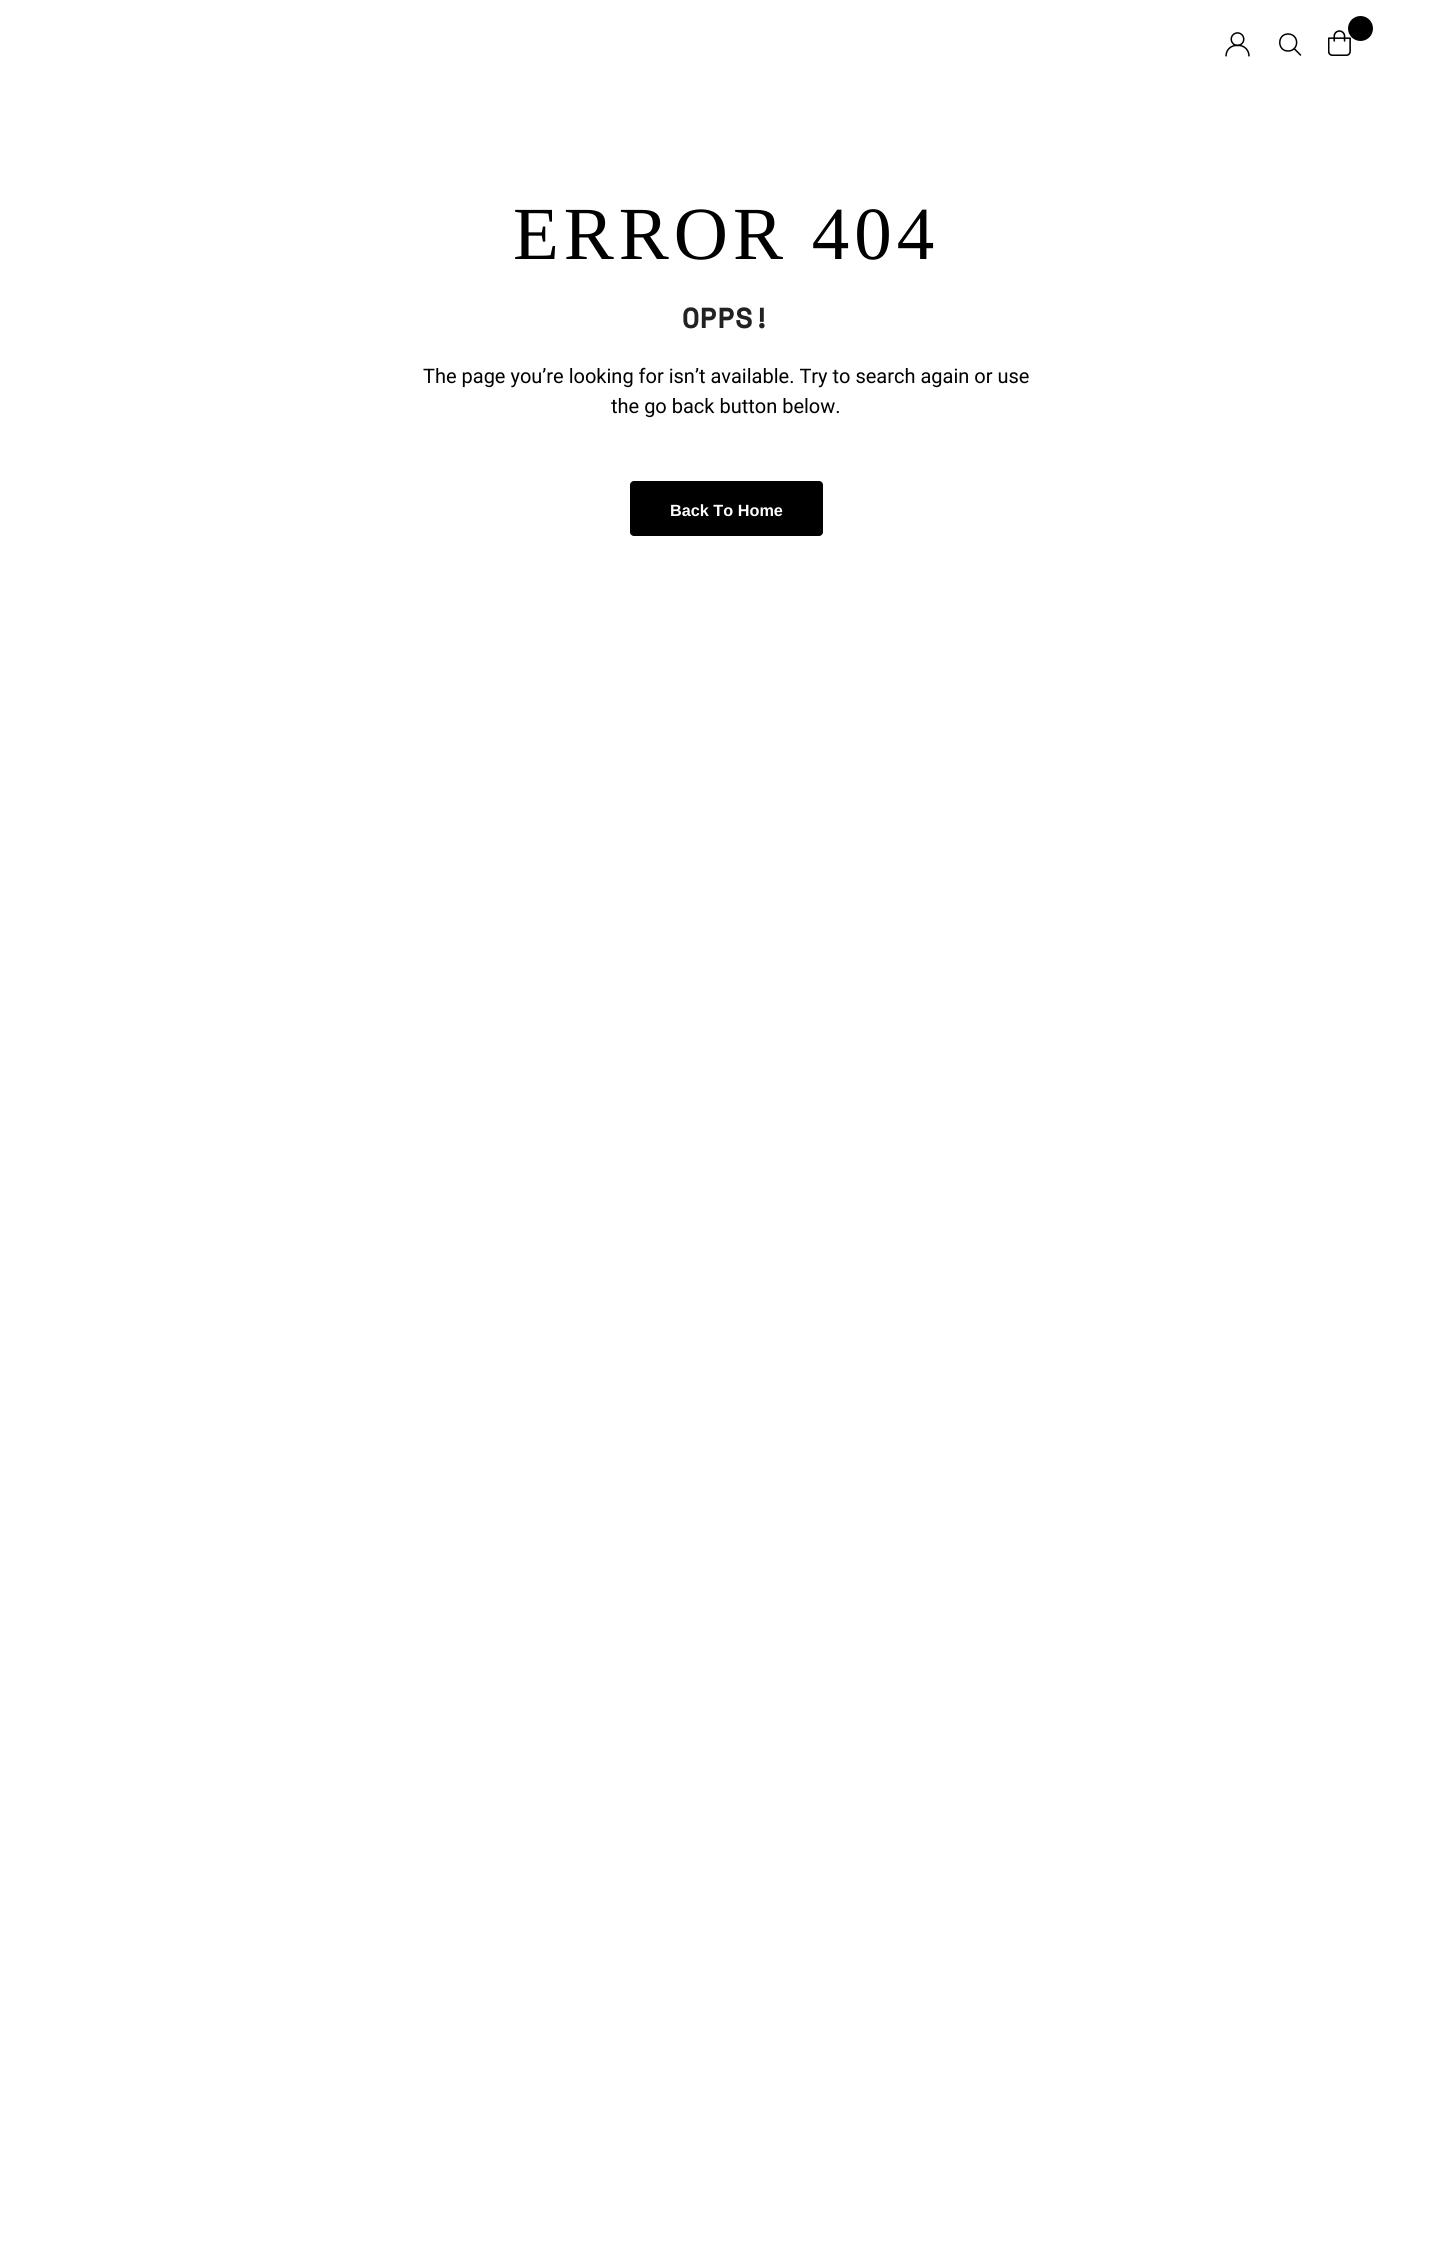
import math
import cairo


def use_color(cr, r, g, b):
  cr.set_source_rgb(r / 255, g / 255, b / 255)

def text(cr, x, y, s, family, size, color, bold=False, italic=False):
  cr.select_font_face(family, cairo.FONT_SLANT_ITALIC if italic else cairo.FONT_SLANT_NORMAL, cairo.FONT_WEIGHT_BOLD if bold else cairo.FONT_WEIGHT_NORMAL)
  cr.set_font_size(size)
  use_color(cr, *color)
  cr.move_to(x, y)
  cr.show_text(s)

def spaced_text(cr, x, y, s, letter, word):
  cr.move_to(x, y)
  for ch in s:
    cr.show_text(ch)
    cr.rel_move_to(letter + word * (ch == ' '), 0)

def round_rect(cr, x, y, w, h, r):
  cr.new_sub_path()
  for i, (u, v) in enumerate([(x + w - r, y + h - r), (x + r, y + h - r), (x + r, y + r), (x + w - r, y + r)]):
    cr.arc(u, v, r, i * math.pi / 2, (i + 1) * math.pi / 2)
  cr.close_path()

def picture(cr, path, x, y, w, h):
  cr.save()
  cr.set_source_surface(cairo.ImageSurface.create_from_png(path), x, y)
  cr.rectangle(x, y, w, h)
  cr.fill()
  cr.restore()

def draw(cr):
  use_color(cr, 255, 255, 255)
  cr.paint()
  picture(cr, "img_01.png", 1225, 32, 25, 25)
  cr.new_path()
  cr.move_to(1300.5, 55)
  cr.line_to(1294, 48.5)
  cr.move_to(1288, 51)
  cr.curve_to(1299.5, 51, 1299.5, 34, 1288, 34)
  cr.curve_to(1277, 34, 1277, 51, 1288, 51)
  cr.close_path()
  use_color(cr, 0, 0, 0)
  cr.set_line_width(1.5)
  cr.set_line_cap(cairo.LINE_CAP_ROUND)
  cr.set_line_join(cairo.LINE_JOIN_ROUND)
  cr.stroke()
  picture(cr, "img_02.png", 1328, 30, 23, 26)
  cr.arc(1360.5, 28.5, 12.5, 0, 2 * math.pi)
  cr.fill()
  round_rect(cr, 630, 481, 193, 55, 4)
  cr.fill()
  cr.select_font_face("Liberation Serif")
  cr.set_font_size(75)
  spaced_text(cr, 513, 259, "ERROR 404", 5, 0)
  text(cr, 682, 328, "OPPS!", "Space Mono", 29, (34, 34, 34), bold=True)
  text(cr, 423, 383, "The page you’re looking for isn’t available. Try to search again or use", "Roboto", 20, (0, 0, 0))
  text(cr, 611, 413, "the go back button below.", "Roboto", 20, (0, 0, 0))
  text(cr, 670, 516, "Back To Home", "Liberation Sans", 16.25, (255, 255, 255), bold=True)


surface = cairo.ImageSurface(cairo.FORMAT_RGB24, 1452, 2252)
cr = cairo.Context(surface)
options = cairo.FontOptions()
options.set_hint_metrics(cairo.HINT_METRICS_OFF)
options.set_hint_style(cairo.HINT_STYLE_NONE)
cr.set_font_options(options)
cr.set_miter_limit(4)
draw(cr)
surface.write_to_png("out.png")
